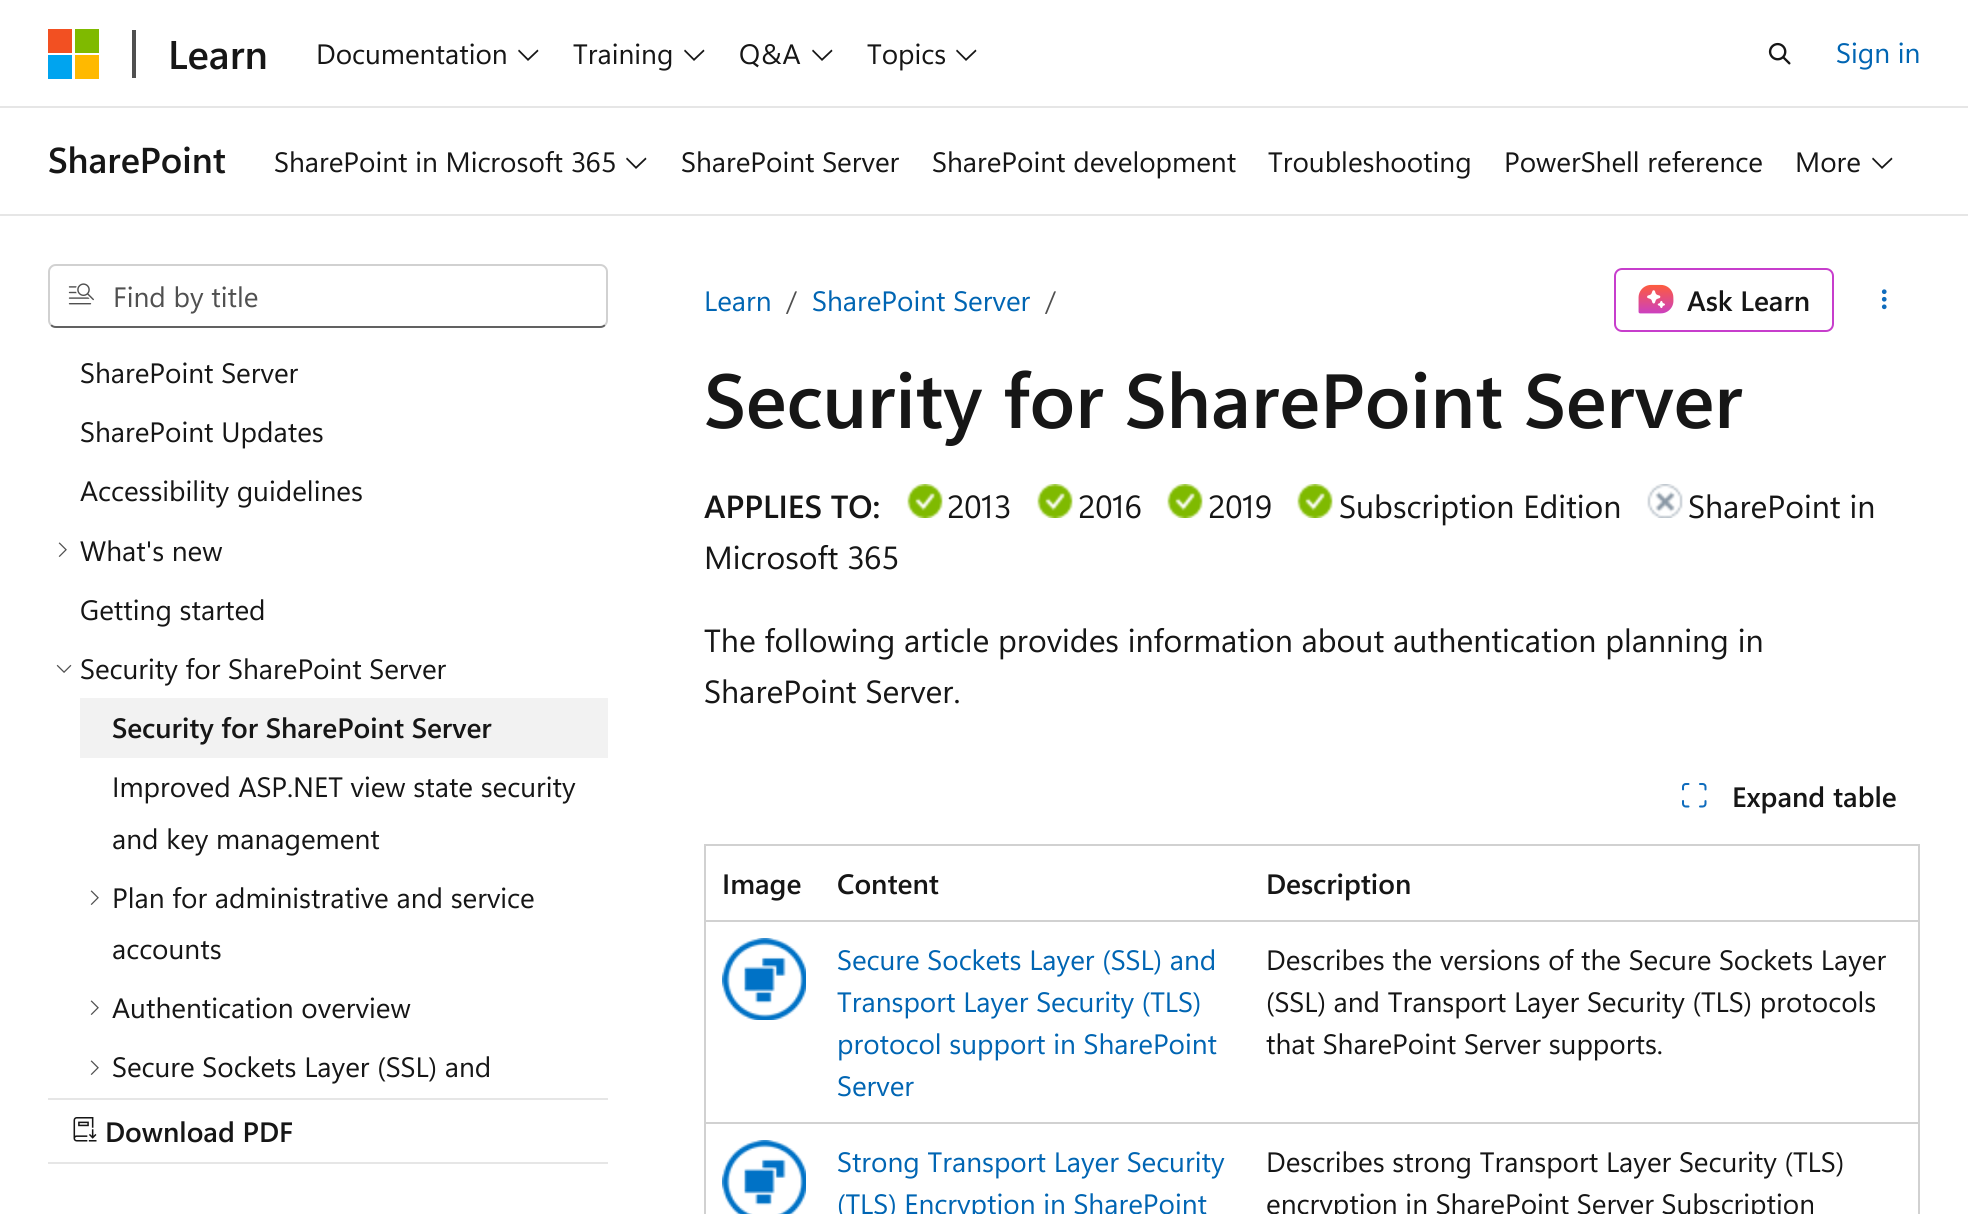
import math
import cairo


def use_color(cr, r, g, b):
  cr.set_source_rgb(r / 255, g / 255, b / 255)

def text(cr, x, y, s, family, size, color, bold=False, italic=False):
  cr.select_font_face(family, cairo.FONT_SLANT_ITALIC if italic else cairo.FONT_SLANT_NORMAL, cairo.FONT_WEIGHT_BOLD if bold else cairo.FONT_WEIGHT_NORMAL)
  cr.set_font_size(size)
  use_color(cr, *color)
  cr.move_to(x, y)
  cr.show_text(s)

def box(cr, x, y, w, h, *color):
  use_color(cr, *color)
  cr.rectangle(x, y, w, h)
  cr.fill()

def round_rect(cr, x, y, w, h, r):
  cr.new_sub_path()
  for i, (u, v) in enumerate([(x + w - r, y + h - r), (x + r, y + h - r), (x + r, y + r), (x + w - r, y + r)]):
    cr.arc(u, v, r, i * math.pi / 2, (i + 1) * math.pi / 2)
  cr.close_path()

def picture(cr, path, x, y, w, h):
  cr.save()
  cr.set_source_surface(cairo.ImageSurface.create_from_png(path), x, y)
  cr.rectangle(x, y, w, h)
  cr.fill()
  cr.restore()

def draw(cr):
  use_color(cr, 255, 255, 255)
  cr.paint()
  box(cr, 0, 106, 1968, 2, 230, 230, 230)
  box(cr, 48, 29, 24, 24, 242, 80, 34)
  box(cr, 75, 29, 24, 24, 127, 186, 0)
  box(cr, 48, 55, 24, 24, 0, 164, 239)
  box(cr, 75, 55, 24, 24, 255, 185, 0)
  box(cr, 132, 30, 4, 48, 80, 80, 80)
  use_color(cr, 22, 22, 22)
  cr.new_path()
  cr.move_to(528, 61)
  cr.line_to(518, 51)
  cr.line_to(519, 49.5)
  cr.line_to(528, 58.5)
  cr.line_to(537.5, 49.5)
  cr.line_to(538.5, 51)
  cr.close_path()
  cr.fill()
  cr.new_path()
  cr.move_to(694, 61)
  cr.line_to(684, 51)
  cr.line_to(685, 49.5)
  cr.line_to(694, 58.5)
  cr.line_to(703.5, 49.5)
  cr.line_to(704.5, 51)
  cr.close_path()
  cr.fill()
  cr.new_path()
  cr.move_to(822, 61)
  cr.line_to(812, 51)
  cr.line_to(813, 49.5)
  cr.line_to(822, 58.5)
  cr.line_to(831.5, 49.5)
  cr.line_to(832.5, 51)
  cr.close_path()
  cr.fill()
  cr.new_path()
  cr.move_to(966, 61)
  cr.line_to(956, 51)
  cr.line_to(957, 49.5)
  cr.line_to(966, 58.5)
  cr.line_to(975.5, 49.5)
  cr.line_to(976.5, 51)
  cr.close_path()
  cr.fill()
  picture(cr, "img_01.png", 1768, 42, 23, 23)
  box(cr, 0, 214, 1968, 2, 230, 230, 230)
  use_color(cr, 22, 22, 22)
  cr.new_path()
  cr.move_to(636, 169)
  cr.line_to(626, 159)
  cr.line_to(627, 157.5)
  cr.line_to(636, 166.5)
  cr.line_to(645.5, 157.5)
  cr.line_to(646.5, 159)
  cr.close_path()
  cr.fill()
  cr.new_path()
  cr.move_to(1882, 169)
  cr.line_to(1872, 159)
  cr.line_to(1873, 157.5)
  cr.line_to(1882, 166.5)
  cr.line_to(1891.5, 157.5)
  cr.line_to(1892.5, 159)
  cr.close_path()
  cr.fill()
  cr.new_path()
  cr.move_to(605, 325)
  cr.curve_to(603.5, 326.5, 602, 327, 600, 327)
  cr.line_to(56, 327)
  cr.curve_to(54, 327, 52.5, 326.5, 51, 325)
  use_color(cr, 97, 97, 97)
  cr.stroke()
  cr.new_path()
  cr.move_to(51, 325)
  cr.curve_to(49.5, 323.5, 49, 322, 49, 320)
  cr.line_to(49, 272)
  cr.curve_to(49, 270, 49.5, 268.5, 51, 267)
  cr.curve_to(52.5, 265.5, 54, 265, 56, 265)
  cr.line_to(600, 265)
  cr.curve_to(602, 265, 603.5, 265.5, 605, 267)
  cr.curve_to(606.5, 268.5, 607, 270, 607, 272)
  cr.line_to(607, 320)
  cr.curve_to(607, 322, 606.5, 323.5, 605, 325)
  use_color(cr, 209, 209, 209)
  cr.stroke()
  picture(cr, "img_02.png", 68, 283, 26, 22)
  picture(cr, "img_03.png", 58, 542, 9, 15)
  picture(cr, "img_04.png", 56, 664, 16, 9)
  box(cr, 80, 698, 528, 60, 242, 242, 242)
  picture(cr, "img_03.png", 90, 890, 9, 15)
  picture(cr, "img_03.png", 90, 1000, 9, 15)
  picture(cr, "img_03.png", 90, 1060, 9, 15)
  box(cr, 48, 1098, 560, 2, 230, 230, 230)
  box(cr, 48, 1162, 560, 2, 230, 230, 230)
  picture(cr, "img_05.png", 73, 1117, 24, 25)
  round_rect(cr, 1615, 269, 218, 62, 7)
  use_color(cr, 199, 62, 204)
  cr.stroke()
  picture(cr, "img_06.png", 1638, 284, 36, 30)
  picture(cr, "img_07.png", 1881, 289, 6, 21)
  picture(cr, "img_08.png", 907, 484, 36, 34)
  picture(cr, "img_08.png", 1037, 484, 36, 34)
  picture(cr, "img_08.png", 1167, 484, 36, 34)
  picture(cr, "img_08.png", 1297, 484, 36, 34)
  picture(cr, "img_09.png", 1647, 484, 36, 34)
  picture(cr, "img_10.png", 1682, 783, 25, 25)
  box(cr, 704, 844, 1216, 2, 209, 209, 209)
  box(cr, 1918, 844, 2, 370, 209, 209, 209)
  box(cr, 704, 844, 2, 370, 209, 209, 209)
  picture(cr, "img_11.png", 722, 938, 84, 82)
  box(cr, 704, 920, 1216, 2, 209, 209, 209)
  picture(cr, "img_12.png", 722, 1140, 84, 74)
  box(cr, 704, 1122, 1216, 2, 209, 209, 209)
  text(cr, 168, 69, "Learn", "Segoe UI SemiBold", 40, (22, 22, 22))
  text(cr, 316, 64, "Documentation", "Segoe UI", 28, (22, 22, 22))
  text(cr, 573, 64, "Training", "Segoe UI", 28, (22, 22, 22))
  text(cr, 739, 64, "Q&A", "Segoe UI", 28, (22, 22, 22))
  text(cr, 867, 64, "Topics", "Segoe UI", 28, (22, 22, 22))
  text(cr, 1836, 63, "Sign in", "Segoe UI", 28, (0, 101, 179))
  text(cr, 48, 173, "SharePoint", "Segoe UI SemiBold", 36, (22, 22, 22))
  text(cr, 274, 172, "SharePoint in Microsoft 365", "Segoe UI", 28, (22, 22, 22))
  text(cr, 681, 172, "SharePoint Server", "Segoe UI", 28, (22, 22, 22))
  text(cr, 932, 172, "SharePoint development", "Segoe UI", 28, (22, 22, 22))
  text(cr, 1268, 172, "Troubleshooting", "Segoe UI", 28, (22, 22, 22))
  text(cr, 1504, 172, "PowerShell reference", "Segoe UI", 28, (22, 22, 22))
  text(cr, 1795, 172, "More", "Segoe UI", 28, (22, 22, 22))
  text(cr, 113, 307, "Find by title", "Segoe UI", 28, (80, 80, 80))
  text(cr, 80, 383, "SharePoint Server", "Segoe UI", 28, (22, 22, 22))
  text(cr, 80, 442, "SharePoint Updates", "Segoe UI", 28, (22, 22, 22))
  text(cr, 80, 501, "Accessibility guidelines", "Segoe UI", 28, (22, 22, 22))
  text(cr, 80, 561, "What's new", "Segoe UI", 28, (22, 22, 22))
  text(cr, 80, 620, "Getting started", "Segoe UI", 28, (22, 22, 22))
  text(cr, 80, 679, "Security for SharePoint Server", "Segoe UI", 28, (22, 22, 22))
  text(cr, 112, 738, "Security for SharePoint Server", "Segoe UI SemiBold", 28, (22, 22, 22))
  text(cr, 112, 797, "Improved ASP.NET view state security", "Segoe UI", 28, (22, 22, 22))
  text(cr, 112, 849, "and key management", "Segoe UI", 28, (22, 22, 22))
  text(cr, 112, 908, "Plan for administrative and service", "Segoe UI", 28, (22, 22, 22))
  text(cr, 112, 959, "accounts", "Segoe UI", 28, (22, 22, 22))
  text(cr, 112, 1018, "Authentication overview", "Segoe UI", 28, (22, 22, 22))
  text(cr, 112, 1077, "Secure Sockets Layer (SSL) and", "Segoe UI", 28, (22, 22, 22))
  text(cr, 105, 1142, "Download PDF", "Segoe UI SemiBold", 28, (22, 22, 22))
  text(cr, 704, 311, "Learn", "Segoe UI", 28, (0, 101, 179))
  text(cr, 786, 311, "/", "Segoe UI", 28, (80, 80, 80))
  text(cr, 812, 311, "SharePoint Server", "Segoe UI", 28, (0, 101, 179))
  text(cr, 1045, 311, "/", "Segoe UI", 28, (80, 80, 80))
  text(cr, 1687, 311, "Ask Learn", "Segoe UI SemiBold", 28, (22, 22, 22))
  text(cr, 704, 428, "Security for SharePoint Server", "Segoe UI SemiBold", 76.6, (22, 22, 22))
  text(cr, 704, 518, "APPLIES TO:", "Segoe UI SemiBold", 32, (22, 22, 22))
  text(cr, 947, 518, "2013", "Segoe UI", 32, (22, 22, 22))
  text(cr, 1078, 518, "2016", "Segoe UI", 32, (22, 22, 22))
  text(cr, 1208, 518, "2019", "Segoe UI", 32, (22, 22, 22))
  text(cr, 1339, 518, "Subscription Edition", "Segoe UI", 32, (22, 22, 22))
  text(cr, 1688, 518, "SharePoint in", "Segoe UI", 32, (22, 22, 22))
  text(cr, 704, 569, "Microsoft 365", "Segoe UI", 32, (22, 22, 22))
  text(cr, 704, 652, "The following article provides information about authentication planning in", "Segoe UI", 32, (22, 22, 22))
  text(cr, 704, 703, "SharePoint Server.", "Segoe UI", 32, (22, 22, 22))
  text(cr, 1732, 807, "Expand table", "Segoe UI SemiBold", 28, (22, 22, 22))
  text(cr, 722, 894, "Image", "Segoe UI SemiBold", 28, (22, 22, 22))
  text(cr, 837, 894, "Content", "Segoe UI SemiBold", 28, (22, 22, 22))
  text(cr, 1266, 894, "Description", "Segoe UI SemiBold", 28, (22, 22, 22))
  text(cr, 837, 970, "Secure Sockets Layer (SSL) and", "Segoe UI", 28, (0, 101, 179))
  text(cr, 837, 1012, "Transport Layer Security (TLS)", "Segoe UI", 28, (0, 101, 179))
  text(cr, 837, 1054, "protocol support in SharePoint", "Segoe UI", 28, (0, 101, 179))
  text(cr, 837, 1096, "Server", "Segoe UI", 28, (0, 101, 179))
  text(cr, 1266, 970, "Describes the versions of the Secure Sockets Layer", "Segoe UI", 28, (22, 22, 22))
  text(cr, 1266, 1012, "(SSL) and Transport Layer Security (TLS) protocols", "Segoe UI", 28, (22, 22, 22))
  text(cr, 1266, 1054, "that SharePoint Server supports.", "Segoe UI", 28, (22, 22, 22))
  text(cr, 837, 1172, "Strong Transport Layer Security", "Segoe UI", 28, (0, 101, 179))
  text(cr, 837, 1214, "(TLS) Encryption in SharePoint", "Segoe UI", 28, (0, 101, 179))
  text(cr, 1266, 1172, "Describes strong Transport Layer Security (TLS)", "Segoe UI", 28, (22, 22, 22))
  text(cr, 1266, 1214, "encryption in SharePoint Server Subscription", "Segoe UI", 28, (22, 22, 22))


surface = cairo.ImageSurface(cairo.FORMAT_RGB24, 1968, 1214)
cr = cairo.Context(surface)
options = cairo.FontOptions()
options.set_hint_metrics(cairo.HINT_METRICS_OFF)
options.set_hint_style(cairo.HINT_STYLE_NONE)
cr.set_font_options(options)
cr.set_miter_limit(4)
draw(cr)
surface.write_to_png("out.png")
